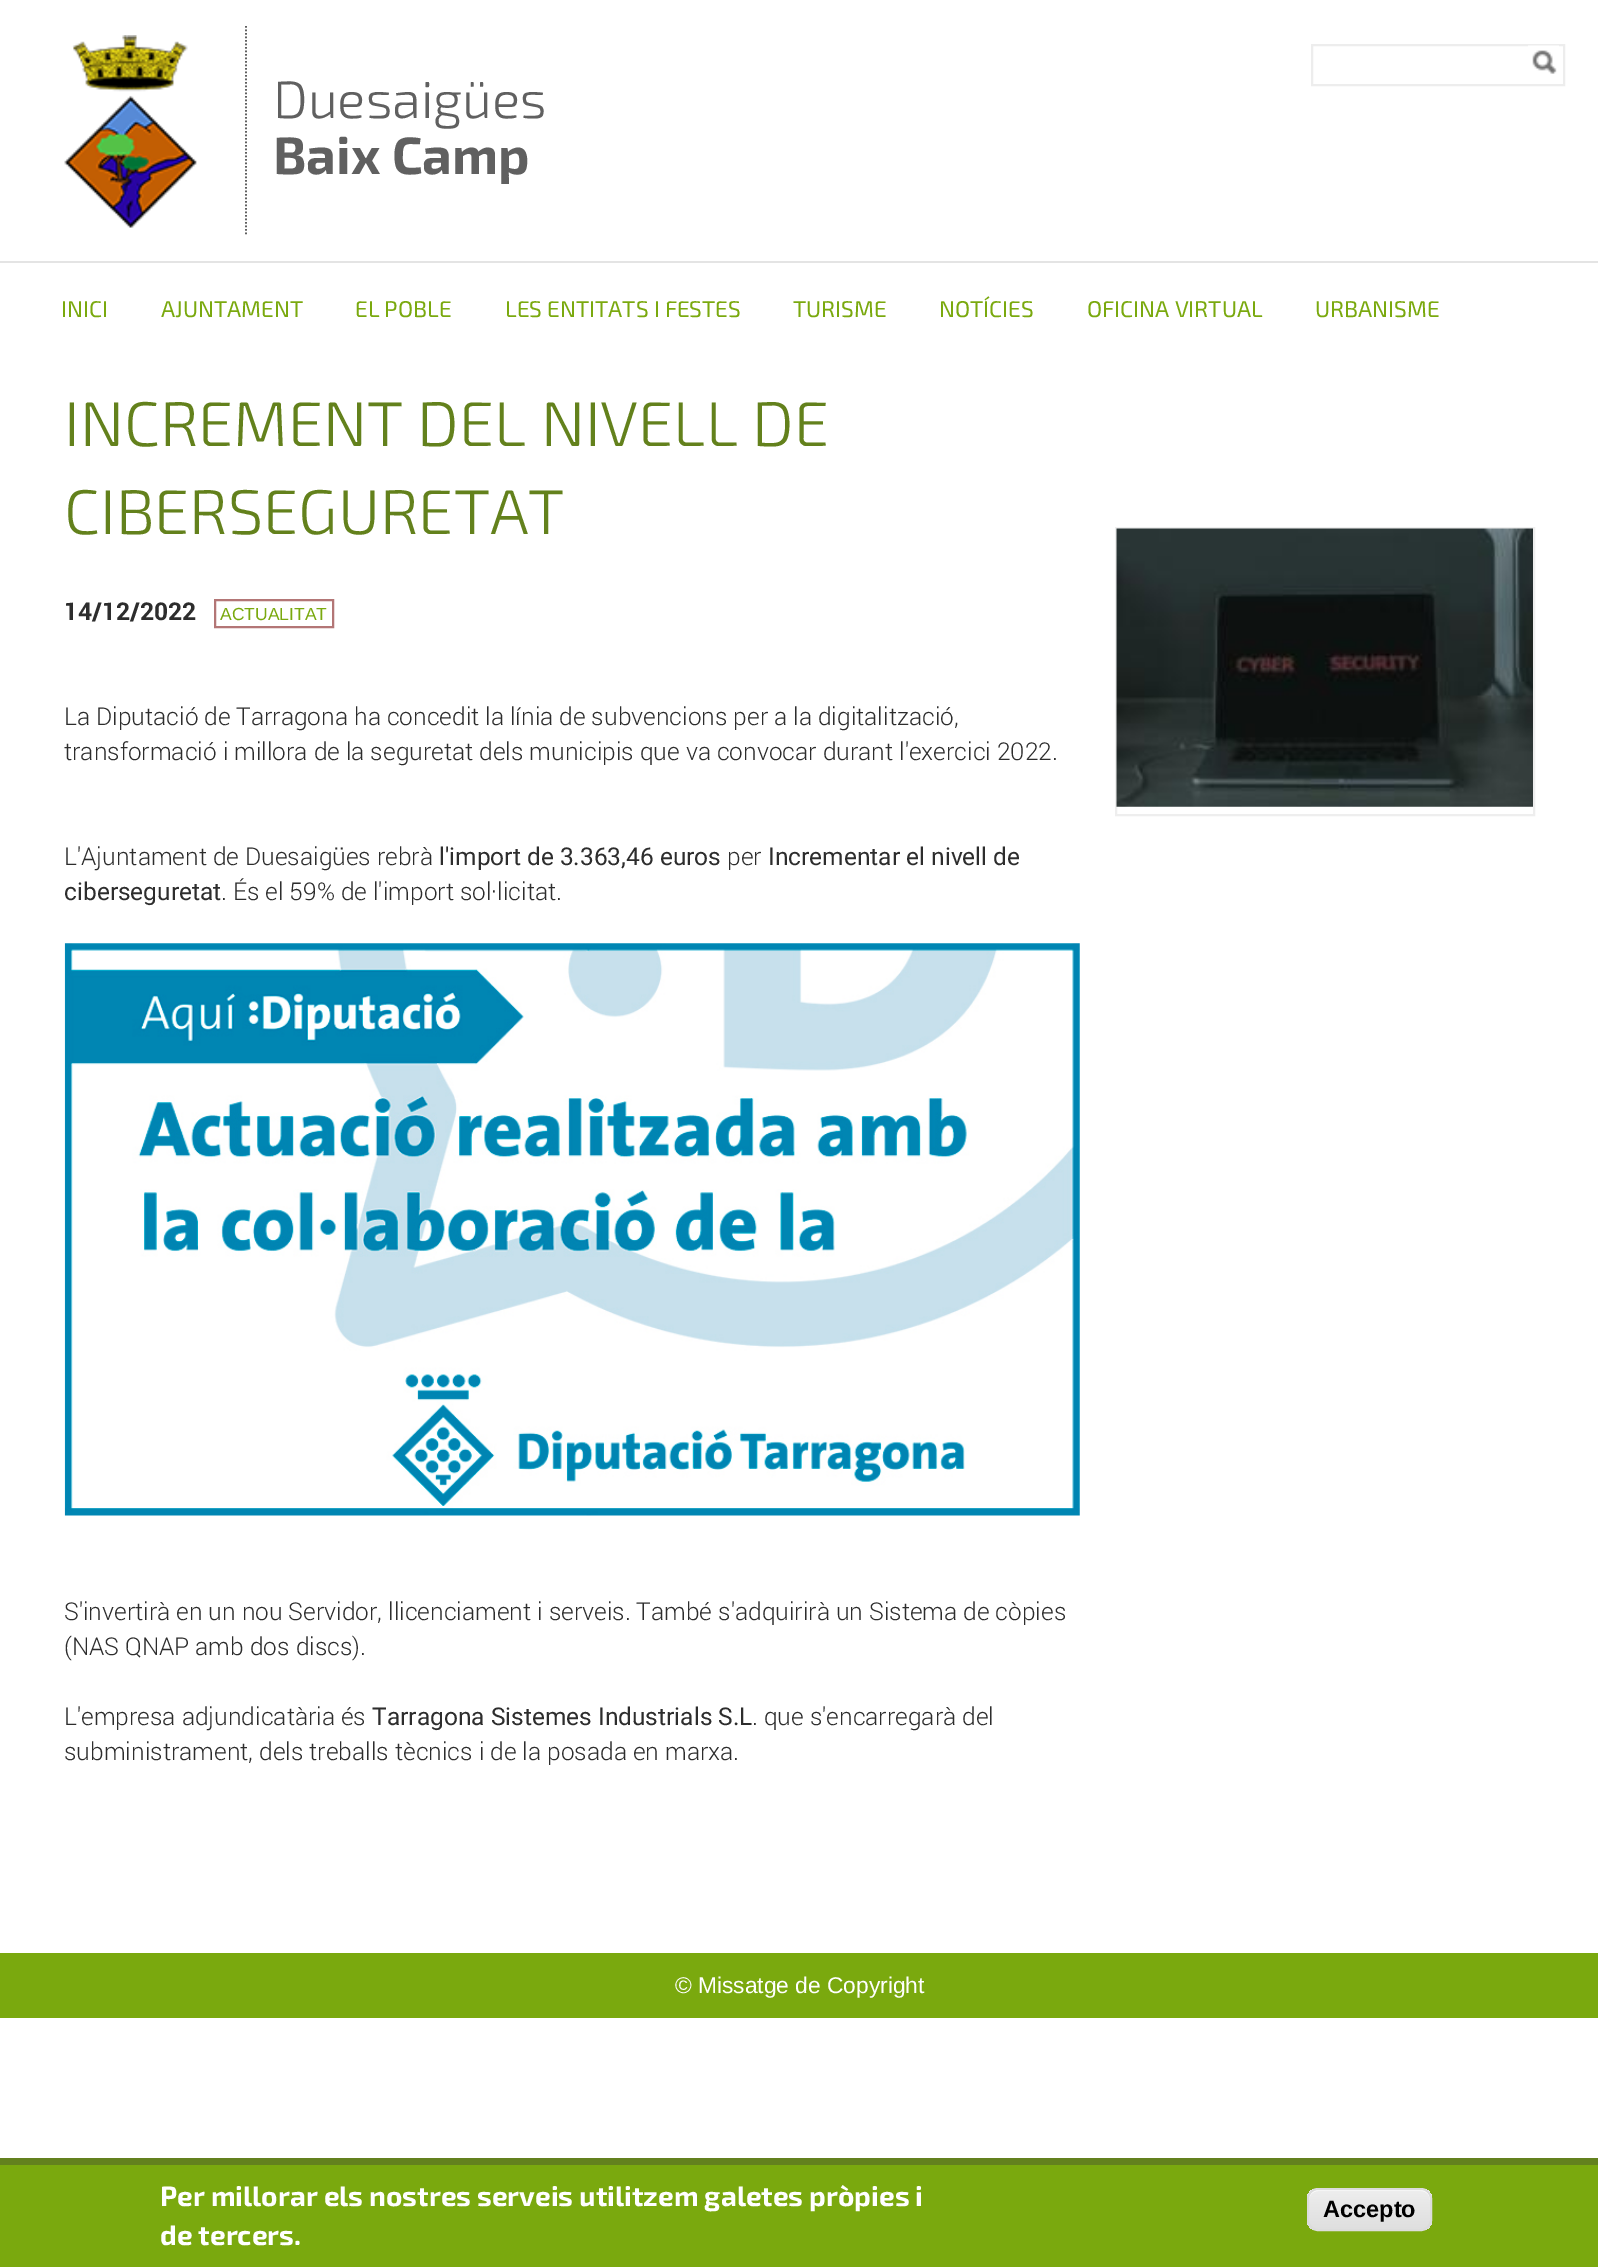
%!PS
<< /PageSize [1598 2267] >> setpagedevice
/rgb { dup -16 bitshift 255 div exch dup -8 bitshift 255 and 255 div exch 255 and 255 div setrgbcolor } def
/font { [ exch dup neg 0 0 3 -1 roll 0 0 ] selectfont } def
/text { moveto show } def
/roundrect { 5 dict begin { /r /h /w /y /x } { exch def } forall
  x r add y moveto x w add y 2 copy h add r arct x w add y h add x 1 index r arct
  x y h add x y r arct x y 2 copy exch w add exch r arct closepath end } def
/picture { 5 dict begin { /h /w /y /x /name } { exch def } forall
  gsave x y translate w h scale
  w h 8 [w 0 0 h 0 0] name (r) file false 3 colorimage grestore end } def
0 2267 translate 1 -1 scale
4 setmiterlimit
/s1 { /Exo2-Light 52.5 font 16#606060 rgb } def
/s2 { /Exo2-Bold 52.5 font 16#606060 rgb } def
/s3 { /Exo2-Regular 22.75 font 16#7AA90E rgb } def
/s4 { /Exo2-Light 63 font 16#63811C rgb } def
/s5 { /Roboto-Bold 24.5 font 16#2D2D2D rgb } def
/s6 { /LiberationSans-Regular 17.5 font 16#7AA90E rgb } def
/s7 { /Roboto-Light 24.5 font 16#2D2D2D rgb } def
/s8 { /Roboto-Regular 24.5 font 16#2D2D2D rgb } def
/s9 { /LiberationSans-Regular 22.75 font 16#FFFFFF rgb } def
/s10 { /Exo2-Bold 28 font 16#FFFFFF rgb } def
/s11 { /LiberationSans-Bold 23.5 font 16#000000 rgb } def
16#FFFFFF rgb
0 0 1598 2267 rectfill
16#EDEDED rgb
2 setlinewidth
1312 45 252 40 rectstroke
(pic1.raw) 1528 45 31 29 picture
(pic2.raw) 64 35 133 193 picture
16#606060 rgb
1.8 setlinewidth
[1.75 1.75] 0 setdash
246 26 moveto 246 234.5 lineto stroke
s1
(Duesaigües) 273 118 text
s2
(Baix Camp) 273 174 text
16#E4E4E4 rgb
0 261 1598 2 rectfill
s3
(INICI) 61 317 text
(AJUNTAMENT) 161 317 text
(EL POBLE) 355 317 text
(LES ENTITATS I FESTES) 505 317 text
(TURISME) 793 317 text
(NOTÍCIES) 939 317 text
(OFICINA VIRTUAL) 1087 317 text
(URBANISME) 1315 317 text
s4
(INCREMENT DEL NIVELL DE) 64 446 text
(CIBERSEGURETAT) 64 534 text
s5
(14/12/2022) 64 620 text
16#B37676 rgb
2 setlinewidth
[] 0 setdash
215 600 118 27 rectstroke
s6
(ACTUALITAT) 220 620 text
s7
(La Diputació de Tarragona ha concedit la línia de subvencions per a la digitalització,) 64 725 text
(transformació i millora de la seguretat dels municipis que va convocar durant l'exercici 2022.) 64 760 text
(L'Ajuntament de Duesaigües rebrà) 64 865 text
s8
(l'import de 3.363,46 euros) 439 865 text
s7
(per) 727 865 text
s8
(Incrementar el nivell de) 768 865 text
(ciberseguretat) 64 900 text
s7
(. És el 59% de l'import sol·licitat.) 221 900 text
(pic3.raw) 64 943 1016 573 picture
(S'invertirà en un nou Servidor, llicenciament i serveis. També s'adquirirà un Sistema de còpies) 64 1620 text
(\(NAS QNAP amb dos discs\).) 64 1655 text
(L'empresa adjundicatària és) 64 1725 text
s8
(Tarragona Sistemes Industrials S.L) 372 1725 text
s7
(. que s'encarregarà del) 752 1725 text
(subministrament, dels treballs tècnics i de la posada en marxa.) 64 1760 text
16#EEEEEE rgb
1116 528 418 287 rectstroke
(pic4.raw) 1116 528 417 279 picture
16#7AA90E rgb
0 1953 1598 65 rectfill
s9
(© Missatge de Copyright) 675 1993 text
16#7AA90E rgb
0 2165 1598 102 rectfill
16#63811E rgb
0 2158 1598 7 rectfill
s10
(Per millorar els nostres serveis utilitzem galetes pròpies i) 160 2206 text
(de tercers.) 160 2245 text
gsave
1307 2188 125 43 11 roundrect clip newpath
gsave 1307 2189 moveto 1432 2189 lineto 1432 2230 lineto 1307 2230 lineto closepath clip newpath
<< /ShadingType 2 /ColorSpace /DeviceRGB /Coords [1369 2189 1369 2230] /Extend [true true] /Function << /FunctionType 3 /Domain [0 1] /Functions [<< /FunctionType 2 /Domain [0 1] /C0 [0.929 0.929 0.929] /C1 [0.929 0.929 0.929] /N 1 >> << /FunctionType 2 /Domain [0 1] /C0 [0.929 0.929 0.929] /C1 [0.875 0.875 0.875] /N 1 >>] /Bounds [0.05] /Encode [0 1 0 1] >> >> shfill grestore
grestore
1318 2191 moveto 1421 2191 lineto 1426 2191 1430 2195 1430 2200 curveto 1430 2185 1415 2189 1404 2189 curveto 1335 2189 lineto 1324 2189 1309 2185 1309 2200 curveto 1309 2195 1313 2191 1318 2191 curveto closepath fill
16#DCDCDC rgb
1308 2189 123 41 10 roundrect stroke
s11
(Accepto) 1323 2217 text
showpage
